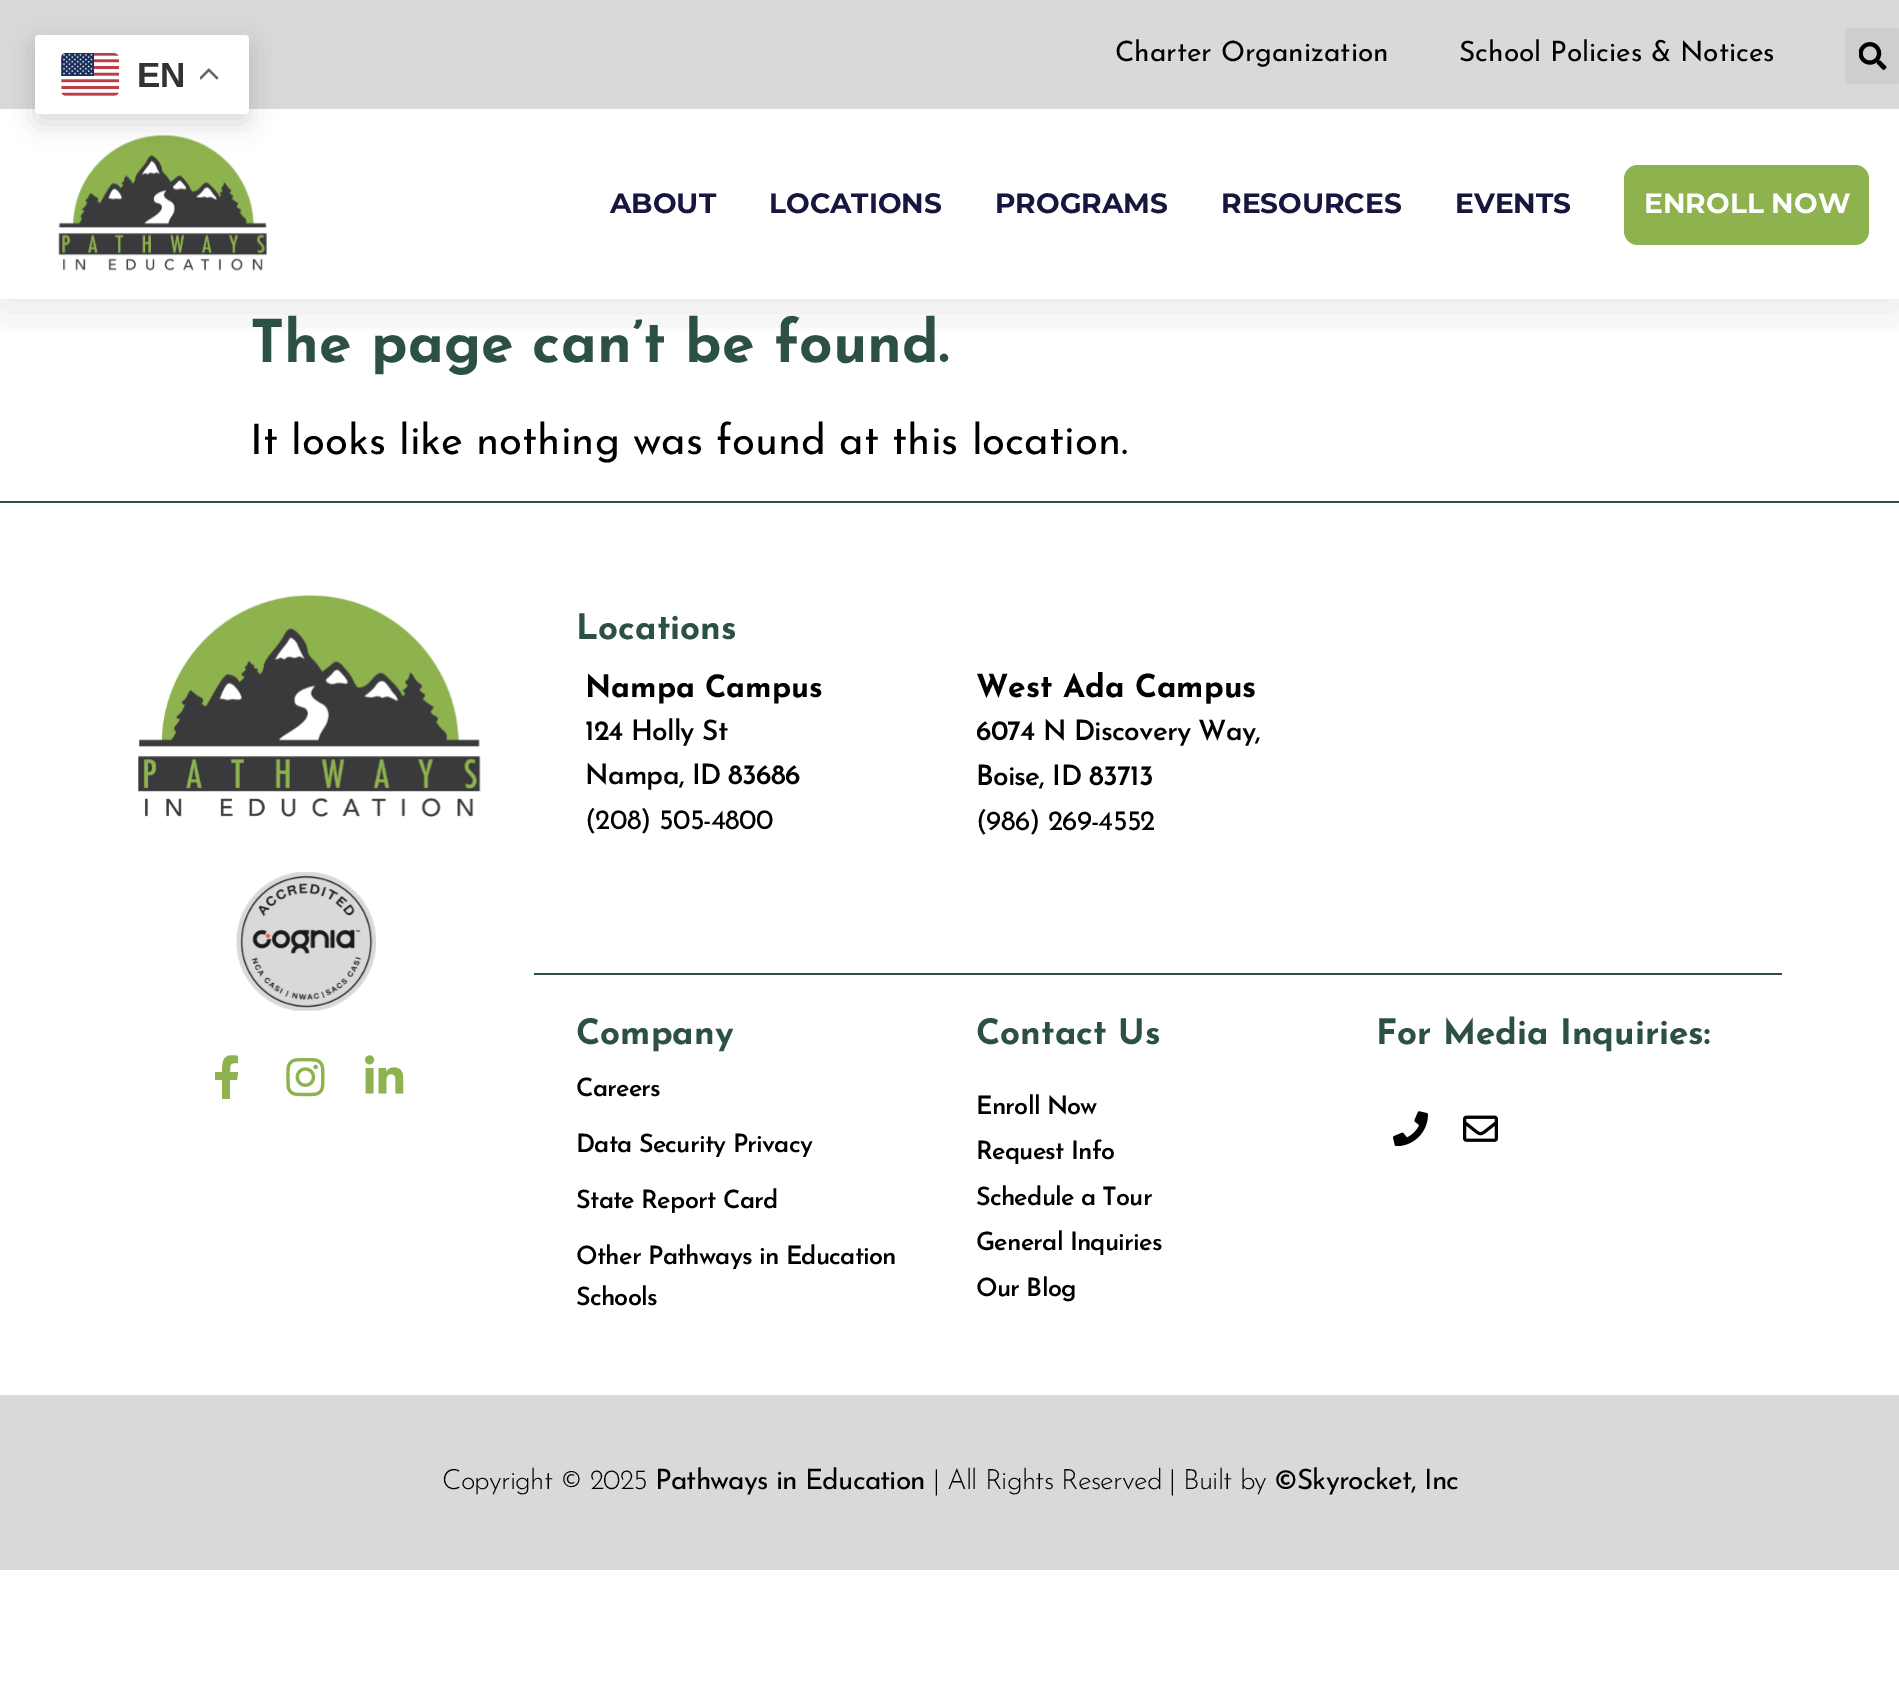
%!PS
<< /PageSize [1899 1703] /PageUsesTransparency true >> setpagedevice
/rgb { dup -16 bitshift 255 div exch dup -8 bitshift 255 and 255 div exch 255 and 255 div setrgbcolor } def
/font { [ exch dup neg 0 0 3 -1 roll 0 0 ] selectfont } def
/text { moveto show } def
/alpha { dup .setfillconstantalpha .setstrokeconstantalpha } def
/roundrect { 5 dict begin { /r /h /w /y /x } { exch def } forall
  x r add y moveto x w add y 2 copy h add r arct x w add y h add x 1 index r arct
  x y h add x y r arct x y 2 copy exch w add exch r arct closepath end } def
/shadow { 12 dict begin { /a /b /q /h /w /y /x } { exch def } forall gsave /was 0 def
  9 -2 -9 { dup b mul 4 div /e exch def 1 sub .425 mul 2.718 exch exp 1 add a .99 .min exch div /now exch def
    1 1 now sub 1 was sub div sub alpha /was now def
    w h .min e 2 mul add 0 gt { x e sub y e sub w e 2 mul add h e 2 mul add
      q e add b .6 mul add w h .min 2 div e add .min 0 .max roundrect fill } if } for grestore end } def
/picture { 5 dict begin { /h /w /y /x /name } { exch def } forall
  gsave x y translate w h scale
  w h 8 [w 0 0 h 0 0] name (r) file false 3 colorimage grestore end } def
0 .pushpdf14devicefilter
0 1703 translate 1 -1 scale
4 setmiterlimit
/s1 { /LiberationSans-Bold 35 font 16#333333 rgb } def
/s2 { /JosefinSans-Regular 28 font 16#000000 rgb } def
/s3 { /Montserrat-Bold 28 font 16#16163F rgb } def
/s4 { /Montserrat-Bold 28 font 16#FFFFFF rgb } def
/s5 { /JosefinSans-Bold 58.75 font 16#2D5044 rgb } def
/s6 { /JosefinSans-Regular 42 font 16#000000 rgb } def
/s7 { /JosefinSans-Bold 35 font 16#2D5044 rgb } def
/s8 { /JosefinSans-Bold 30.75 font 16#000000 rgb } def
/s9 { /JosefinSans-Bold 31.75 font 16#000000 rgb } def
16#FFFFFF rgb
0 0 1899 1703 rectfill
gsave
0 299 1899 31 rectclip
16#000000 rgb
0 9 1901 299 0 26 0.1 shadow
grestore
16#D9D9D9 rgb
0 0 1899 109 rectfill
(pic4.raw) 58 134 209 137 picture
16#000000 rgb
35 44 214 79 4 13 0.15 shadow
16#FFFFFF rgb
35 35 214 79 4 roundrect fill
(pic1.raw) 61 53 58 43 picture
s1
(EN) 137 87 text
(pic2.raw) 200 68 19 12 picture
s2
(Charter Organization) 1115 61 text
(School Policies & Notices) 1459 61 text
16#CECECE rgb
1845 28 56 56 5 roundrect fill
(pic3.raw) 1859 42 28 28 picture
s3
(ABOUT) 610 213 text
(LOCATIONS) 769 213 text
(PROGRAMS) 995 213 text
(RESOURCES) 1221 213 text
(EVENTS) 1455 213 text
16#8DB24E rgb
1624 165 245 80 14 roundrect fill
s4
(ENROLL NOW) 1644 213 text
s5
(The page can’t be found.) 250 362 text
s6
(It looks like nothing was found at this location.) 250 454 text
16#2D5044 rgb
0 501 1899 2 rectfill
(pic5.raw) 138 594 343 223 picture
(pic6.raw) 236 872 140 139 picture
16#8DB24E rgb
237 1080 moveto 238 1072 lineto 230 1072 lineto 230 1064 230 1063 238 1063 curveto 238 1056 lineto 224 1053 222 1059 222 1072 curveto 215 1072 lineto 215 1080 lineto 222 1080 lineto 222 1099 lineto 230 1099 lineto 230 1080 lineto closepath fill
(pic7.raw) 286 1058 39 39 picture
(pic8.raw) 365 1055 39 39 picture
s7
(Locations) 576 639 text
s8
(Nampa Campus) 585 697 text
/JosefinSans-SemiBold 28 font
585 740 moveto -0.8 0 (124 Holly St) ashow
585 784 moveto -0.8 0 (Nampa, ID 83686) ashow
/JosefinSans-Regular 28 font
585 829 moveto -0.8 0 (\(208\) 505-4800) ashow
s9
(West Ada Campus) 976 697 text
/JosefinSans-SemiBold 28 font
976 740 moveto -0.8 0 (6074 N Discovery Way,) ashow
976 785 moveto -0.8 0 (Boise, ID 83713) ashow
/JosefinSans-Regular 28 font
976 830 moveto -0.8 0 (\(986\) 269-4552) ashow
16#2D5044 rgb
534 973 1248 2 rectfill
s7
(Company) 576 1044 text
/JosefinSans-SemiBold 25.25 font
16#000000 rgb
576 1096 moveto -0.8 0 (Careers) ashow
576 1152 moveto -0.8 0 (Data Security Privacy) ashow
576 1208 moveto -0.8 0 (State Report Card) ashow
576 1264 moveto -0.8 0 (Other Pathways in Education) ashow
576 1305 moveto -0.8 0 (Schools) ashow
s7
(Contact Us) 976 1044 text
/JosefinSans-SemiBold 25.25 font
16#000000 rgb
976 1114 moveto -0.8 0 (Enroll Now) ashow
976 1159 moveto -0.8 0 (Request Info) ashow
976 1205 moveto -0.8 0 (Schedule a Tour) ashow
976 1250 moveto -0.8 0 (General Inquiries) ashow
976 1296 moveto -0.8 0 (Our Blog) ashow
s7
(For Media Inquiries:) 1376 1044 text
(pic9.raw) 1393 1111 35 35 picture
(pic10.raw) 1463 1115 35 27 picture
16#D9D9D9 rgb
0 1395 1899 175 rectfill
/JosefinSans-Light 28 font
16#000000 rgb
442 1489 moveto -0.8 0 (Copyright © 2025) ashow
/JosefinSans-Regular 28 font
655 1489 moveto -0.8 0 (Pathways in Education) ashow
/JosefinSans-Light 28 font
933 1489 moveto -0.8 0 (| All Rights Reserved | Built by) ashow
/JosefinSans-Regular 28 font
1274 1489 moveto -0.8 0 (©Skyrocket, Inc) ashow
.poppdf14devicefilter showpage
